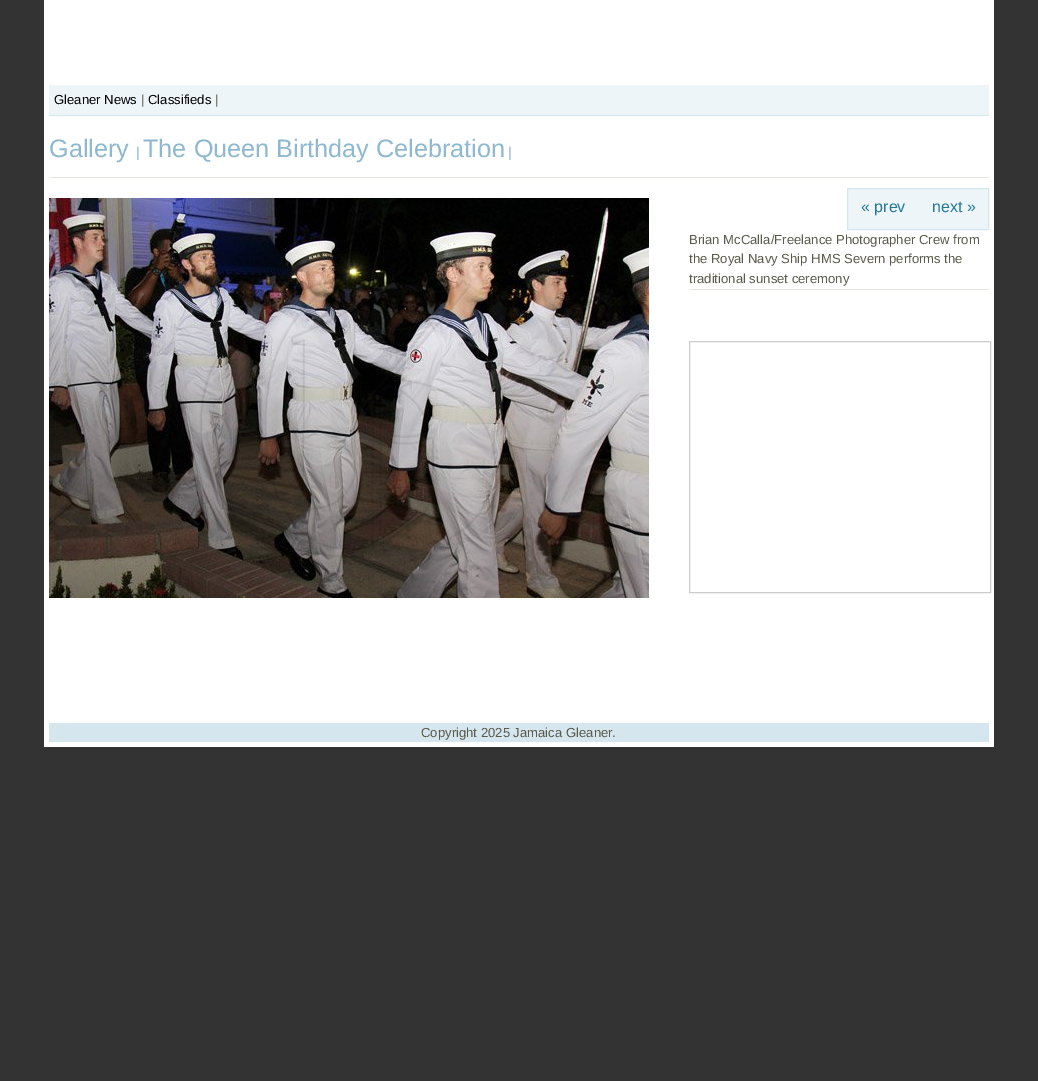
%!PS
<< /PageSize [1038 1081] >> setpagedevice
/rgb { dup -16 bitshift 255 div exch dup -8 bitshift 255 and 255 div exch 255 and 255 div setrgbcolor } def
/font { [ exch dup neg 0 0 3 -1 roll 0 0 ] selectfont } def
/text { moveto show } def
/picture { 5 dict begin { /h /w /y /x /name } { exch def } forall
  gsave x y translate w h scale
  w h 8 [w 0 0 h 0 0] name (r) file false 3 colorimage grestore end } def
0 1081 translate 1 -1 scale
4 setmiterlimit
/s1 { /LiberationSans-Regular 13.1 font 16#000000 rgb } def
/s2 { /LiberationSans-Regular 13.1 font 16#5A5A4B rgb } def
/s3 { /LiberationSans-Regular 25.25 font 16#8DB8CF rgb } def
/s4 { /LiberationSans-Regular 14 font 16#8DB8CF rgb } def
/s5 { /LiberationSans-Regular 16 font 16#237898 rgb } def
16#333333 rgb
0 0 1038 1081 rectfill
16#FFFFFF rgb
44 0 950 747 rectfill
16#EEF5F9 rgb
49 85 940 30 rectfill
16#D5E6EE rgb
49 115 940 1 rectfill
s1
(Gleaner News) 54 104 text
s2
(|) 141 104 text
s1
(Classifieds) 148 104 text
s2
(|) 215 104 text
16#E6E6DF rgb
49 177 940 1 rectfill
s3
(Gallery) 49 157 text
s4
(|) 136 157 text
s3
(The Queen Birthday Celebration) 143 157 text
s4
(|) 508 157 text
(pic1.raw) 49 198 600 400 picture
16#EEF5F9 rgb
847.5 188.5 moveto 988.5 188.5 lineto 988.5 229.5 lineto 847.5 229.5 lineto closepath gsave fill grestore
16#D5E6EE rgb
stroke
s5
(« prev) 861 212 text
(next ») 932 212 text
s2
(Brian McCalla/Freelance Photographer Crew from) 689 244 text
(the Royal Navy Ship HMS Severn performs the) 689 263 text
(traditional sunset ceremony) 689 283 text
16#E6E6DF rgb
689 289 300 1 rectfill
16#CCCCCC rgb
689.5 341.5 301 251 rectstroke
16#D5E6EE rgb
49 723 940 19 rectfill
s2
(Copyright 2025 Jamaica Gleaner.) 421 737 text
showpage
